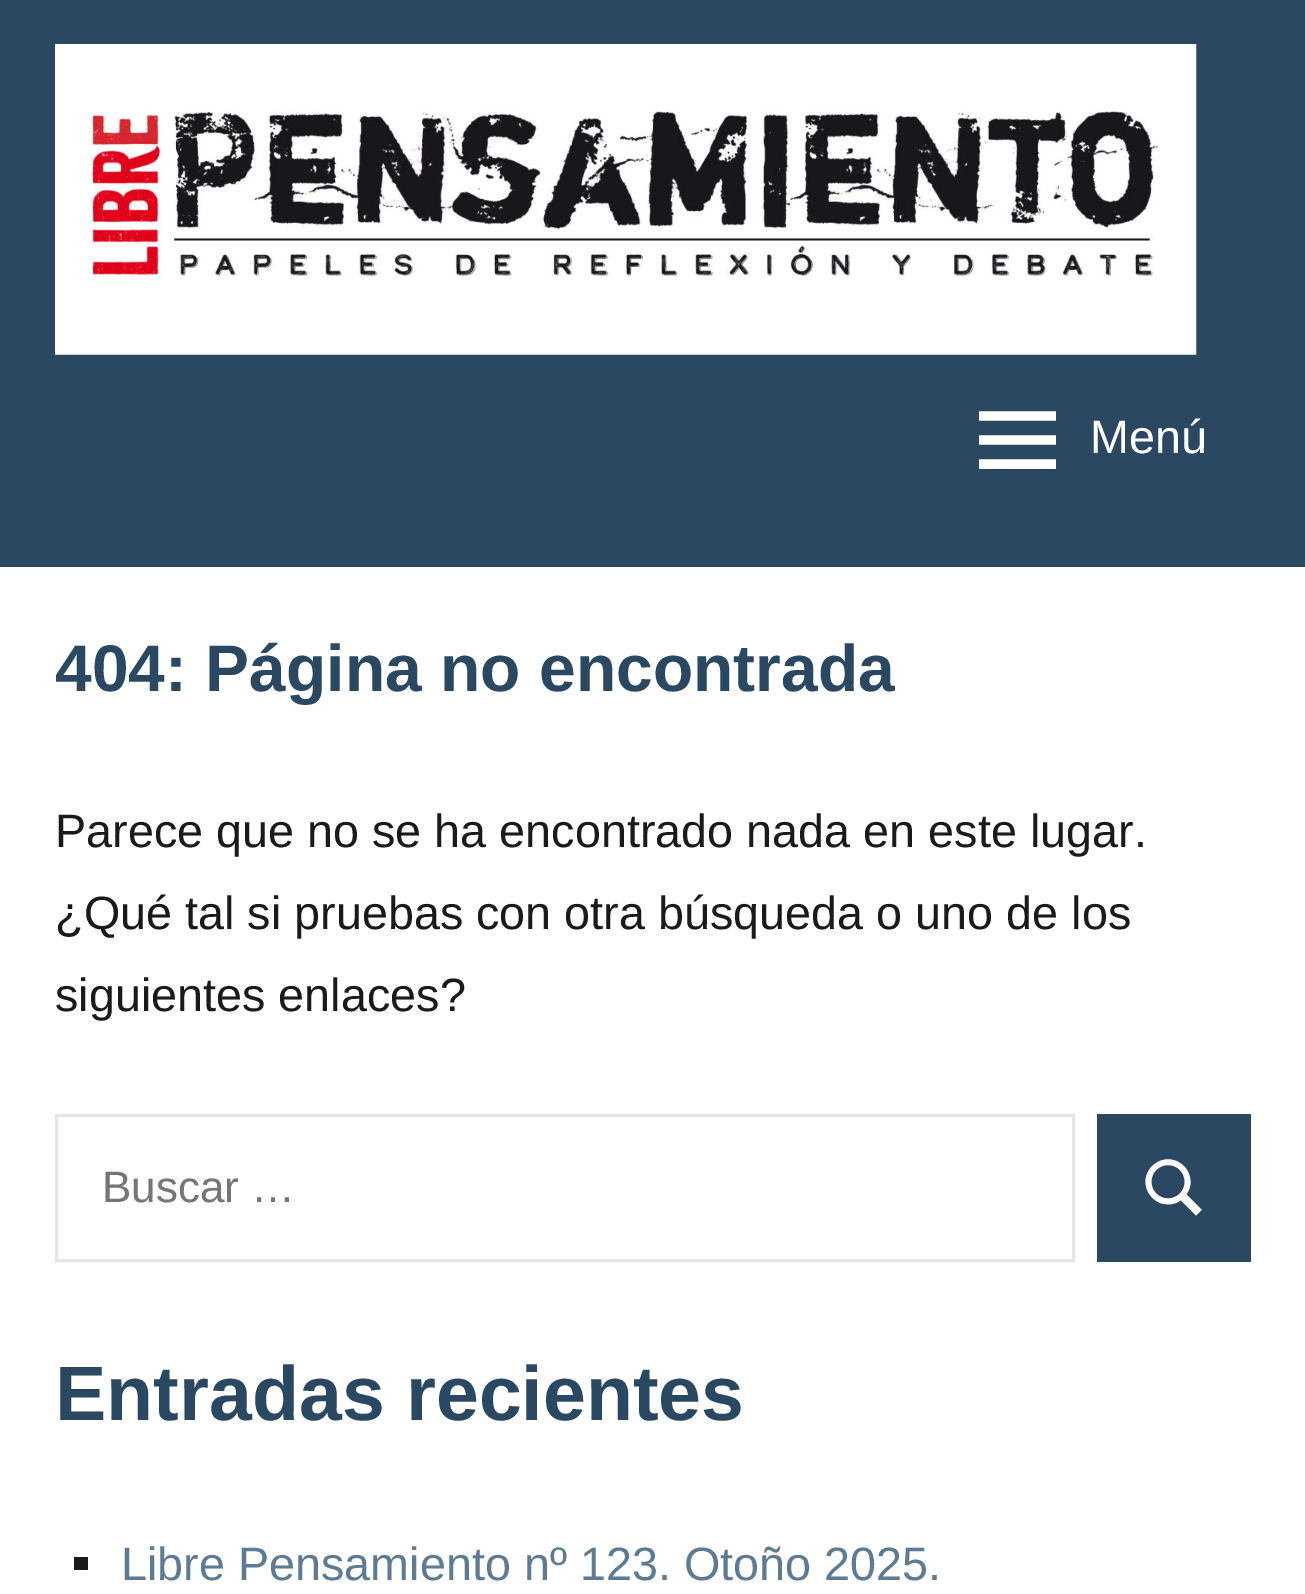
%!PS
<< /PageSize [1305 1594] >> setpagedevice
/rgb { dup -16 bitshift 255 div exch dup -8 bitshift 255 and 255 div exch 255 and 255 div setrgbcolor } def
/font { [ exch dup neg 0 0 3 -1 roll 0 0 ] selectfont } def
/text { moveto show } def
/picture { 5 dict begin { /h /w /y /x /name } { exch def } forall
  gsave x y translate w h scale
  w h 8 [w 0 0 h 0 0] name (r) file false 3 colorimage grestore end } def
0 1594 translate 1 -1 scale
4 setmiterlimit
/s1 { /LiberationSans-Regular 46.75 font 16#FFFFFF rgb } def
/s2 { /LiberationSans-Bold 66 font 16#2A4861 rgb } def
/s3 { /LiberationSans-Regular 46.75 font 16#1A1A1A rgb } def
/s4 { /LiberationSans-Regular 44 font 16#757575 rgb } def
/s5 { /LiberationSans-Bold 77 font 16#2A4861 rgb } def
/s6 { /LiberationSans-Regular 46.75 font 16#5D7B94 rgb } def
16#2A4861 rgb
0 0 1305 1594 rectfill
(pic1.raw) 55 44 1142 311 picture
(pic2.raw) 979 411 77 58 picture
s1
(Menú) 1090 453 text
0 567 1305 1027 rectfill
s2
(404: Página no encontrada) 55 691 text
s3
(Parece que no se ha encontrado nada en este lugar.) 55 847 text
(¿Qué tal si pruebas con otra búsqueda o uno de los) 55 929 text
(siguientes enlaces?) 55 1011 text
16#E6E6E6 rgb
3 setlinewidth
56.5 1115.5 1017 145 rectstroke
s4
(Buscar …) 102 1202 text
16#2A4861 rgb
1097 1114 154 148 rectfill
(pic3.raw) 1145 1159 57 57 picture
s5
(Entradas recientes) 55 1420 text
16#1A1A1A rgb
74 1557 14 13 rectfill
s6
(Libre Pensamiento nº 123. Otoño 2025.) 121 1580 text
showpage
